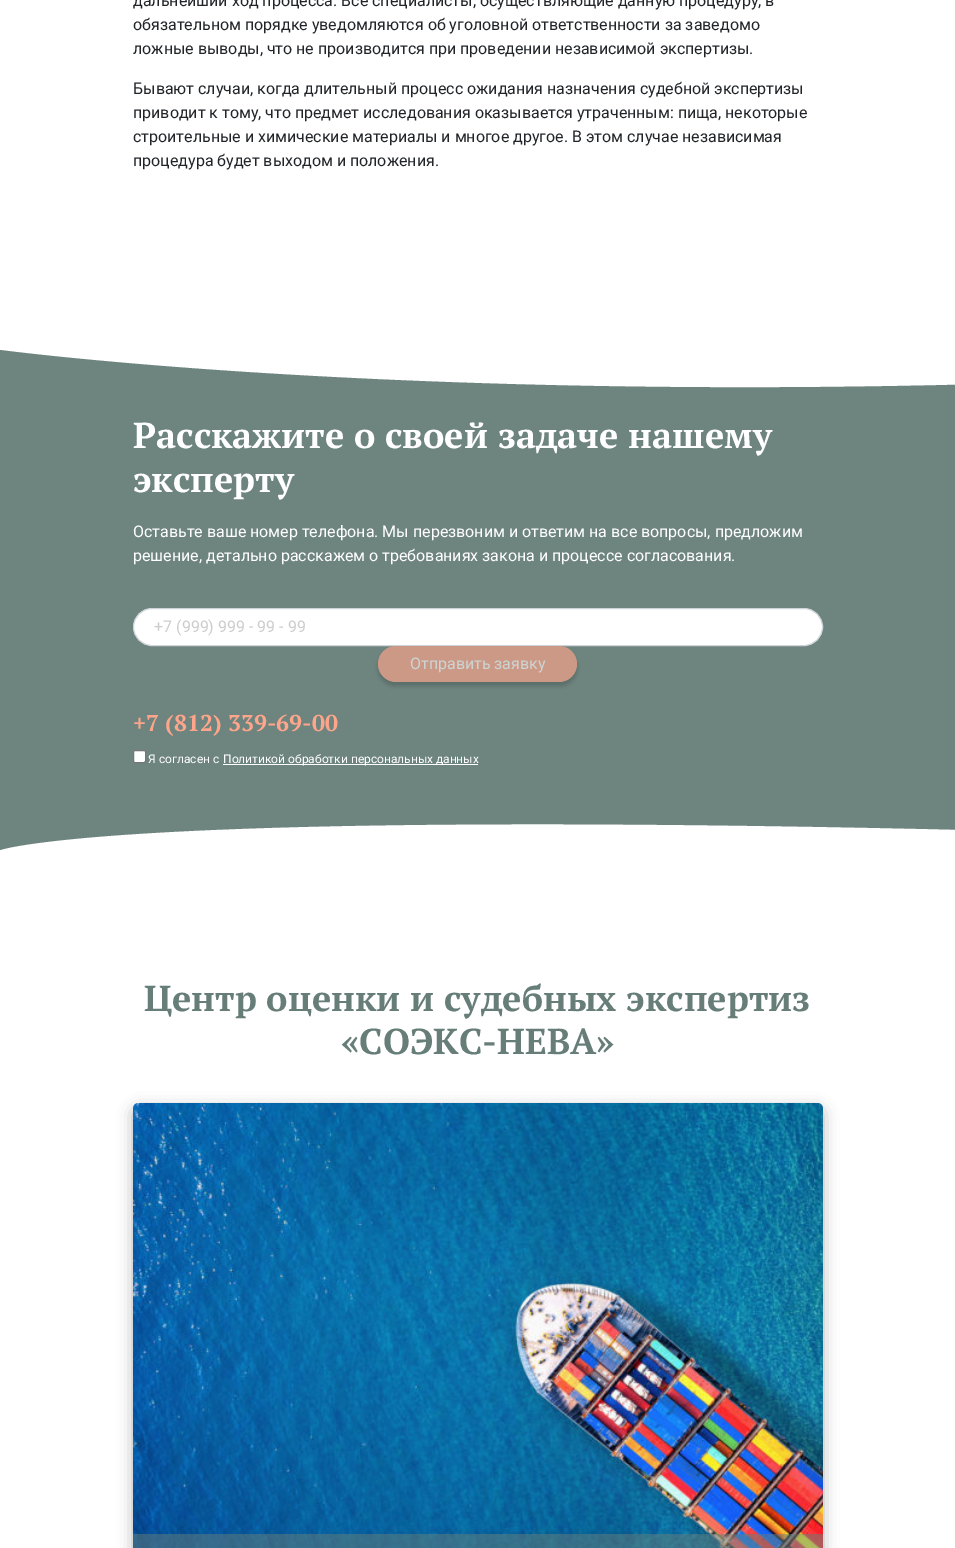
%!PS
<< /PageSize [955 1548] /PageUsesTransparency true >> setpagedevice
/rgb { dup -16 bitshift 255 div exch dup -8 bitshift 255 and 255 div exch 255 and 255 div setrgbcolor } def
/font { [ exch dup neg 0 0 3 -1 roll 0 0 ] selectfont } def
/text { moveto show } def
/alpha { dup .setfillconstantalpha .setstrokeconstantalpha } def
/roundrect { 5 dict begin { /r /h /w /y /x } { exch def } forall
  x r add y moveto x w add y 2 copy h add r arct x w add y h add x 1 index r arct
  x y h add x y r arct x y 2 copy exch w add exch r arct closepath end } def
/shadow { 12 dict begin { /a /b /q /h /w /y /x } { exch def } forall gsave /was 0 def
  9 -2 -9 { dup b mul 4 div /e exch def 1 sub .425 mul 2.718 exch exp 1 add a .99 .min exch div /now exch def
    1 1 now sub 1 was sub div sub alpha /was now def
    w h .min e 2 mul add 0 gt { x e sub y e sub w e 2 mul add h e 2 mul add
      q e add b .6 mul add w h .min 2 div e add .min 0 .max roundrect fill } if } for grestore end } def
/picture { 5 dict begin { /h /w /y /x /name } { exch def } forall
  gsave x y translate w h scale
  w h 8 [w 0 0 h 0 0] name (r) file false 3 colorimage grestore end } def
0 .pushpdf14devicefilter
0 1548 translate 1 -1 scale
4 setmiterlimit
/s1 { /Roboto-Regular 16 font 16#212529 rgb } def
/s2 { /PTSerif-Bold 36 font 16#FFFFFF rgb } def
/s3 { /Roboto-Regular 16 font 16#FFFFFF rgb } def
/s4 { /Roboto-Regular 16 font 16#CCCCCC rgb } def
/s5 { /Roboto-Regular 16 font 16#CCD4D2 rgb } def
/s6 { /PTSerif-Bold 23 font 16#FEA58B rgb } def
/s7 { /Roboto-Regular 12 font 16#FFFFFF rgb } def
/s8 { /PTSerif-Bold 36 font 16#667D78 rgb } def
16#FFFFFF rgb
0 0 955 1548 rectfill
s1
(дальнейший ход процесса. Все специалисты, осуществляющие данную процедуру, в) 133 6 text
(обязательном порядке уведомляются об уголовной ответственности за заведомо) 133 30 text
(ложные выводы, что не производится при проведении независимой экспертизы.) 133 54 text
(Бывают случаи, когда длительный процесс ожидания назначения судебной экспертизы) 133 94 text
(приводит к тому, что предмет исследования оказывается утраченным: пища, некоторые) 133 118 text
(строительные и химические материалы и многое другое. В этом случае независимая) 133 142 text
(процедура будет выходом и положения.) 133 166 text
16#6E847F rgb
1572 350 moveto 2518 267 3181 350 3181 350 curveto 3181 850 lineto 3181 850 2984 908 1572 850 curveto 160 792 0 850 0 850 curveto 0 350 lineto 0 350 627 434 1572 350 curveto closepath fill
s2
(Расскажите о своей задаче нашему) 133 448 text
(эксперту) 133 492 text
s3
(Оставьте ваше номер телефона. Мы перезвоним и ответим на все вопросы, предложим) 133 537 text
(решение, детально расскажем о требованиях закона и процессе согласования.) 133 561 text
133.5 608.5 689 37 18.5 roundrect gsave fill grestore
16#CED4DA rgb
stroke
s4
(+7 \(999\) 999 - 99 - 99) 154 632 text
16#272E2C rgb
378 650 199 36 18 2 0.25 shadow
16#CC9987 rgb
378 646 199 36 18 roundrect fill
s5
(Отправить заявку) 410 669 text
s6
(+7 \(812\) 339-69-00) 133 731 text
16#FFFFFF rgb
133.5 750.5 12 12 1.5 roundrect gsave fill grestore
16#767676 rgb
stroke
s7
(Я согласен с) 148 763 text
223 764 255 1 rectfill
(Политикой обработки персональных данных) 223 763 text
s8
(Центр оценки и судебных экспертиз) 144 1011 text
(«СОЭКС-НЕВА») 341 1054 text
16#000000 rgb
133 1108 690 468 5 7.5 0.3 shadow
(pic1.raw) 133 1103 690 445 picture
0.5 alpha
16#667D78 rgb
133 1534 690 14 rectfill
.poppdf14devicefilter showpage
